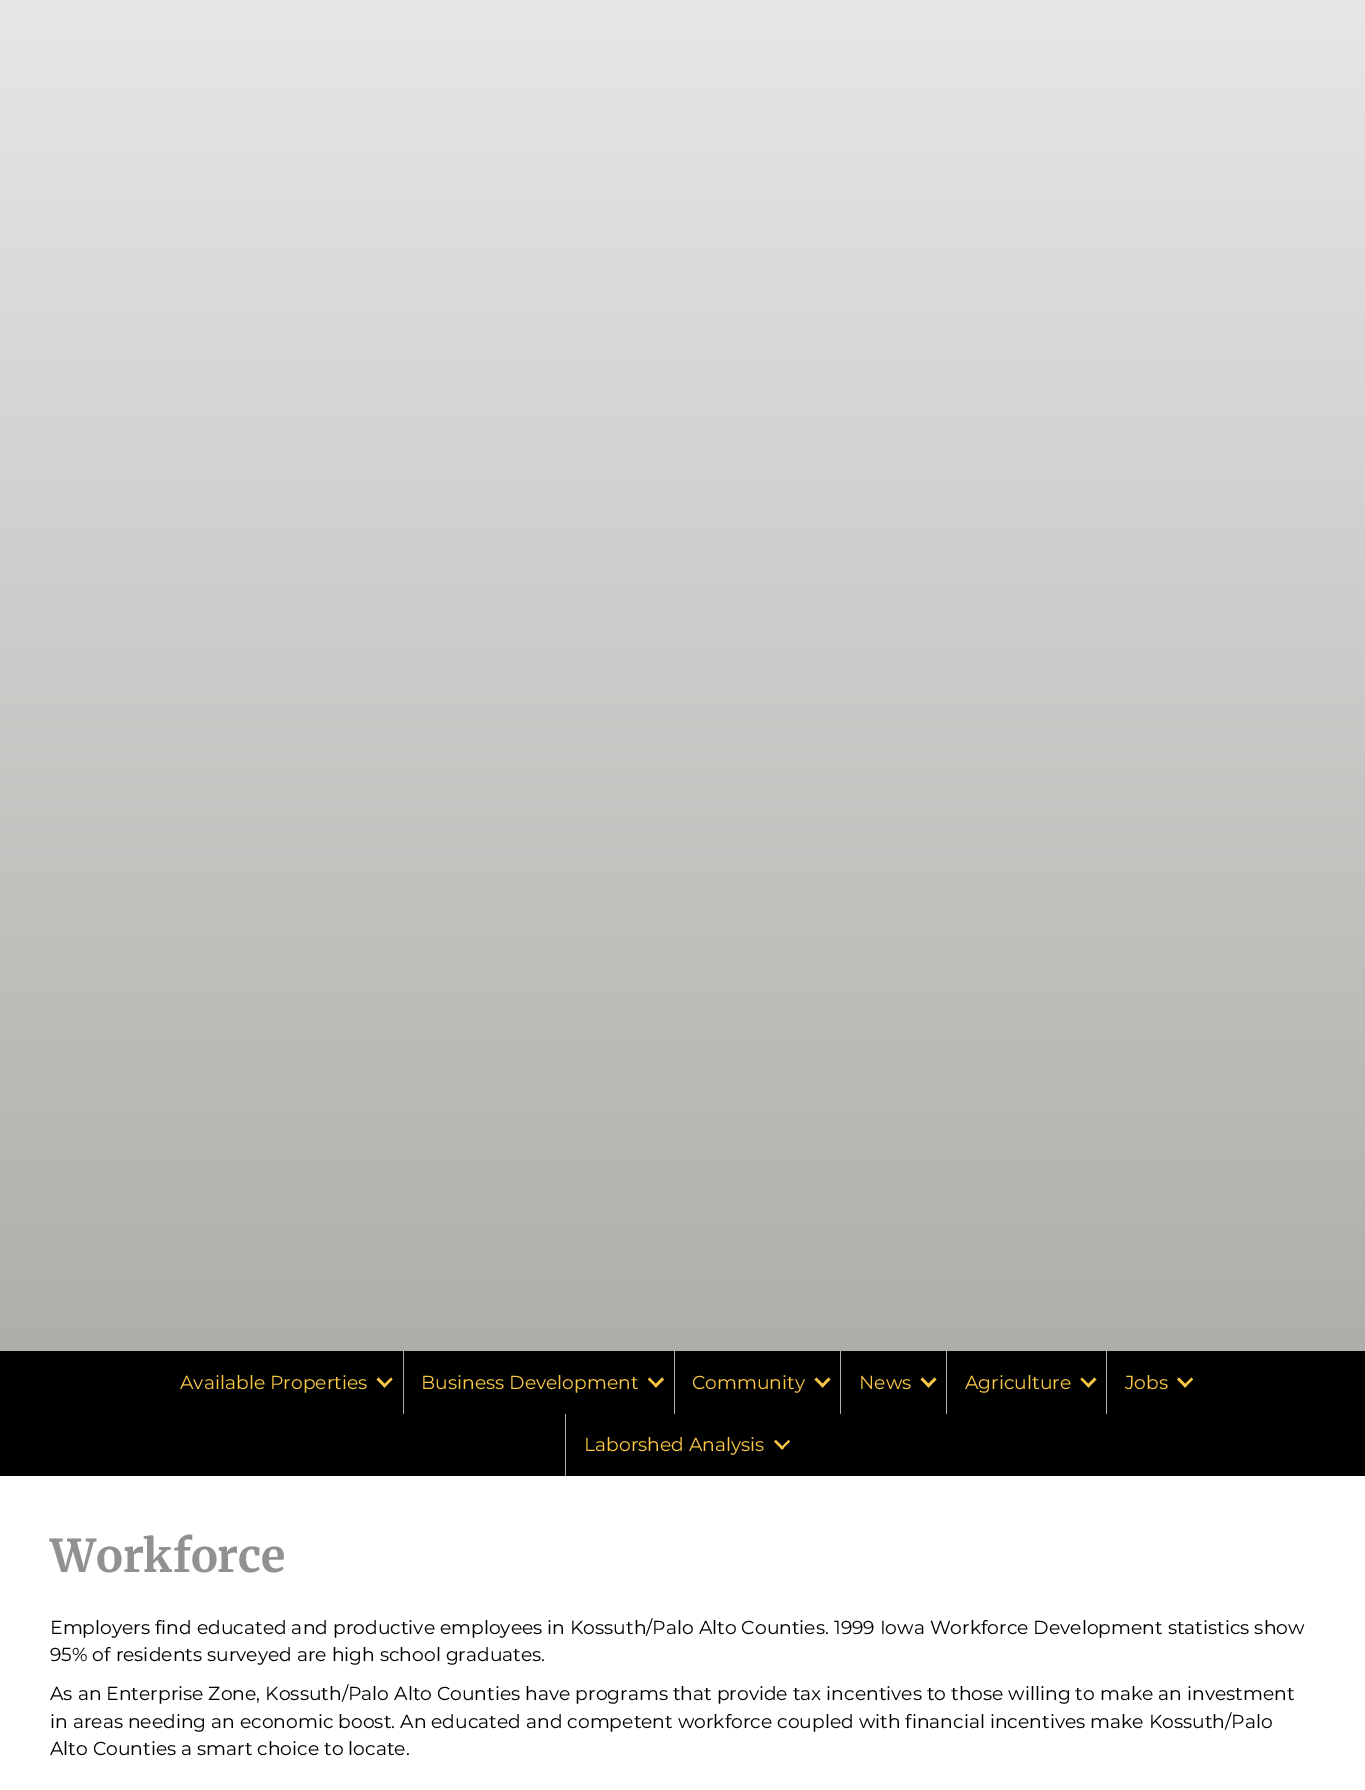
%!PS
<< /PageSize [1365 1790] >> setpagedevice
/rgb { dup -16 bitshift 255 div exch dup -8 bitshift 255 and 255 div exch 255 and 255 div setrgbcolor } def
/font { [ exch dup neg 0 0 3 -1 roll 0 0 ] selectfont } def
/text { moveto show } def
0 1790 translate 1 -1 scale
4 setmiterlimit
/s1 { /Montserrat-Regular 18.75 font 16#FBC846 rgb } def
/s2 { /Merriweather-Light 45 font 16#919191 rgb } def
/s3 { /Montserrat-Regular 18.75 font 16#000000 rgb } def
16#FFFFFF rgb
0 0 1365 1790 rectfill
gsave 0 0 moveto 1365 0 lineto 1365 1351 lineto 0 1351 lineto closepath clip newpath
<< /ShadingType 2 /ColorSpace /DeviceRGB /Coords [683 1351 683 -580] /Extend [true true] /Function << /FunctionType 2 /Domain [0 1] /C0 [0.686 0.682 0.667] /C1 [1 1 1] /N 1 >> >> shfill grestore
16#000000 rgb
0 1351 1365 125 rectfill
s1
(Available Properties) 180 1389 text
391 1377.5 moveto 392.5 1379.5 lineto 384.5 1387.5 lineto 383 1385.5 lineto closepath fill
378.5 1377.5 moveto 386.5 1385.5 lineto 384.5 1387.5 lineto 376.5 1379.5 lineto closepath fill
16#AFAEAA rgb
403 1351 1 63 rectfill
s1
(Business Development) 421 1389 text
662 1377.5 moveto 664 1379.5 lineto 656 1387.5 lineto 654 1385.5 lineto closepath fill
649.5 1377.5 moveto 657.5 1385.5 lineto 656 1387.5 lineto 648 1379.5 lineto closepath fill
16#AFAEAA rgb
674 1351 1 63 rectfill
s1
(Community) 692 1389 text
828.5 1377.5 moveto 830.5 1379.5 lineto 822.5 1387.5 lineto 821 1385.5 lineto closepath fill
816.5 1377.5 moveto 824.5 1385.5 lineto 822.5 1387.5 lineto 814.5 1379.5 lineto closepath fill
16#AFAEAA rgb
840 1351 1 63 rectfill
s1
(News) 859 1389 text
934.5 1377.5 moveto 936.5 1379.5 lineto 928.5 1387.5 lineto 926.5 1385.5 lineto closepath fill
922.5 1377.5 moveto 930.5 1385.5 lineto 928.5 1387.5 lineto 920.5 1379.5 lineto closepath fill
16#AFAEAA rgb
946 1351 1 63 rectfill
s1
(Agriculture) 965 1389 text
1094.5 1377.5 moveto 1096.5 1379.5 lineto 1088.5 1387.5 lineto 1086.5 1385.5 lineto closepath fill
1082 1377.5 moveto 1090 1385.5 lineto 1088.5 1387.5 lineto 1080.5 1379.5 lineto closepath fill
16#AFAEAA rgb
1106 1351 1 63 rectfill
s1
(Jobs) 1125 1389 text
1191.5 1377.5 moveto 1193 1379.5 lineto 1185 1387.5 lineto 1183.5 1385.5 lineto closepath fill
1179 1377.5 moveto 1187 1385.5 lineto 1185 1387.5 lineto 1177 1379.5 lineto closepath fill
16#AFAEAA rgb
565 1414 1 62 rectfill
s1
(Laborshed Analysis) 584 1451 text
788.5 1440 moveto 790 1441.5 lineto 782 1449.5 lineto 780.5 1448 lineto closepath fill
776 1440 moveto 784 1448 lineto 782 1449.5 lineto 774 1441.5 lineto closepath fill
s2
(Workforce) 50 1572 text
s3
(Employers find educated and productive employees in Kossuth/Palo Alto Counties. 1999 Iowa Workforce Development statistics show) 50 1634 text
(95% of residents surveyed are high school graduates.) 50 1661 text
(As an Enterprise Zone, Kossuth/Palo Alto Counties have programs that provide tax incentives to those willing to make an investment) 50 1700 text
(in areas needing an economic boost. An educated and competent workforce coupled with financial incentives make Kossuth/Palo) 50 1728 text
(Alto Counties a smart choice to locate.) 50 1755 text
showpage
